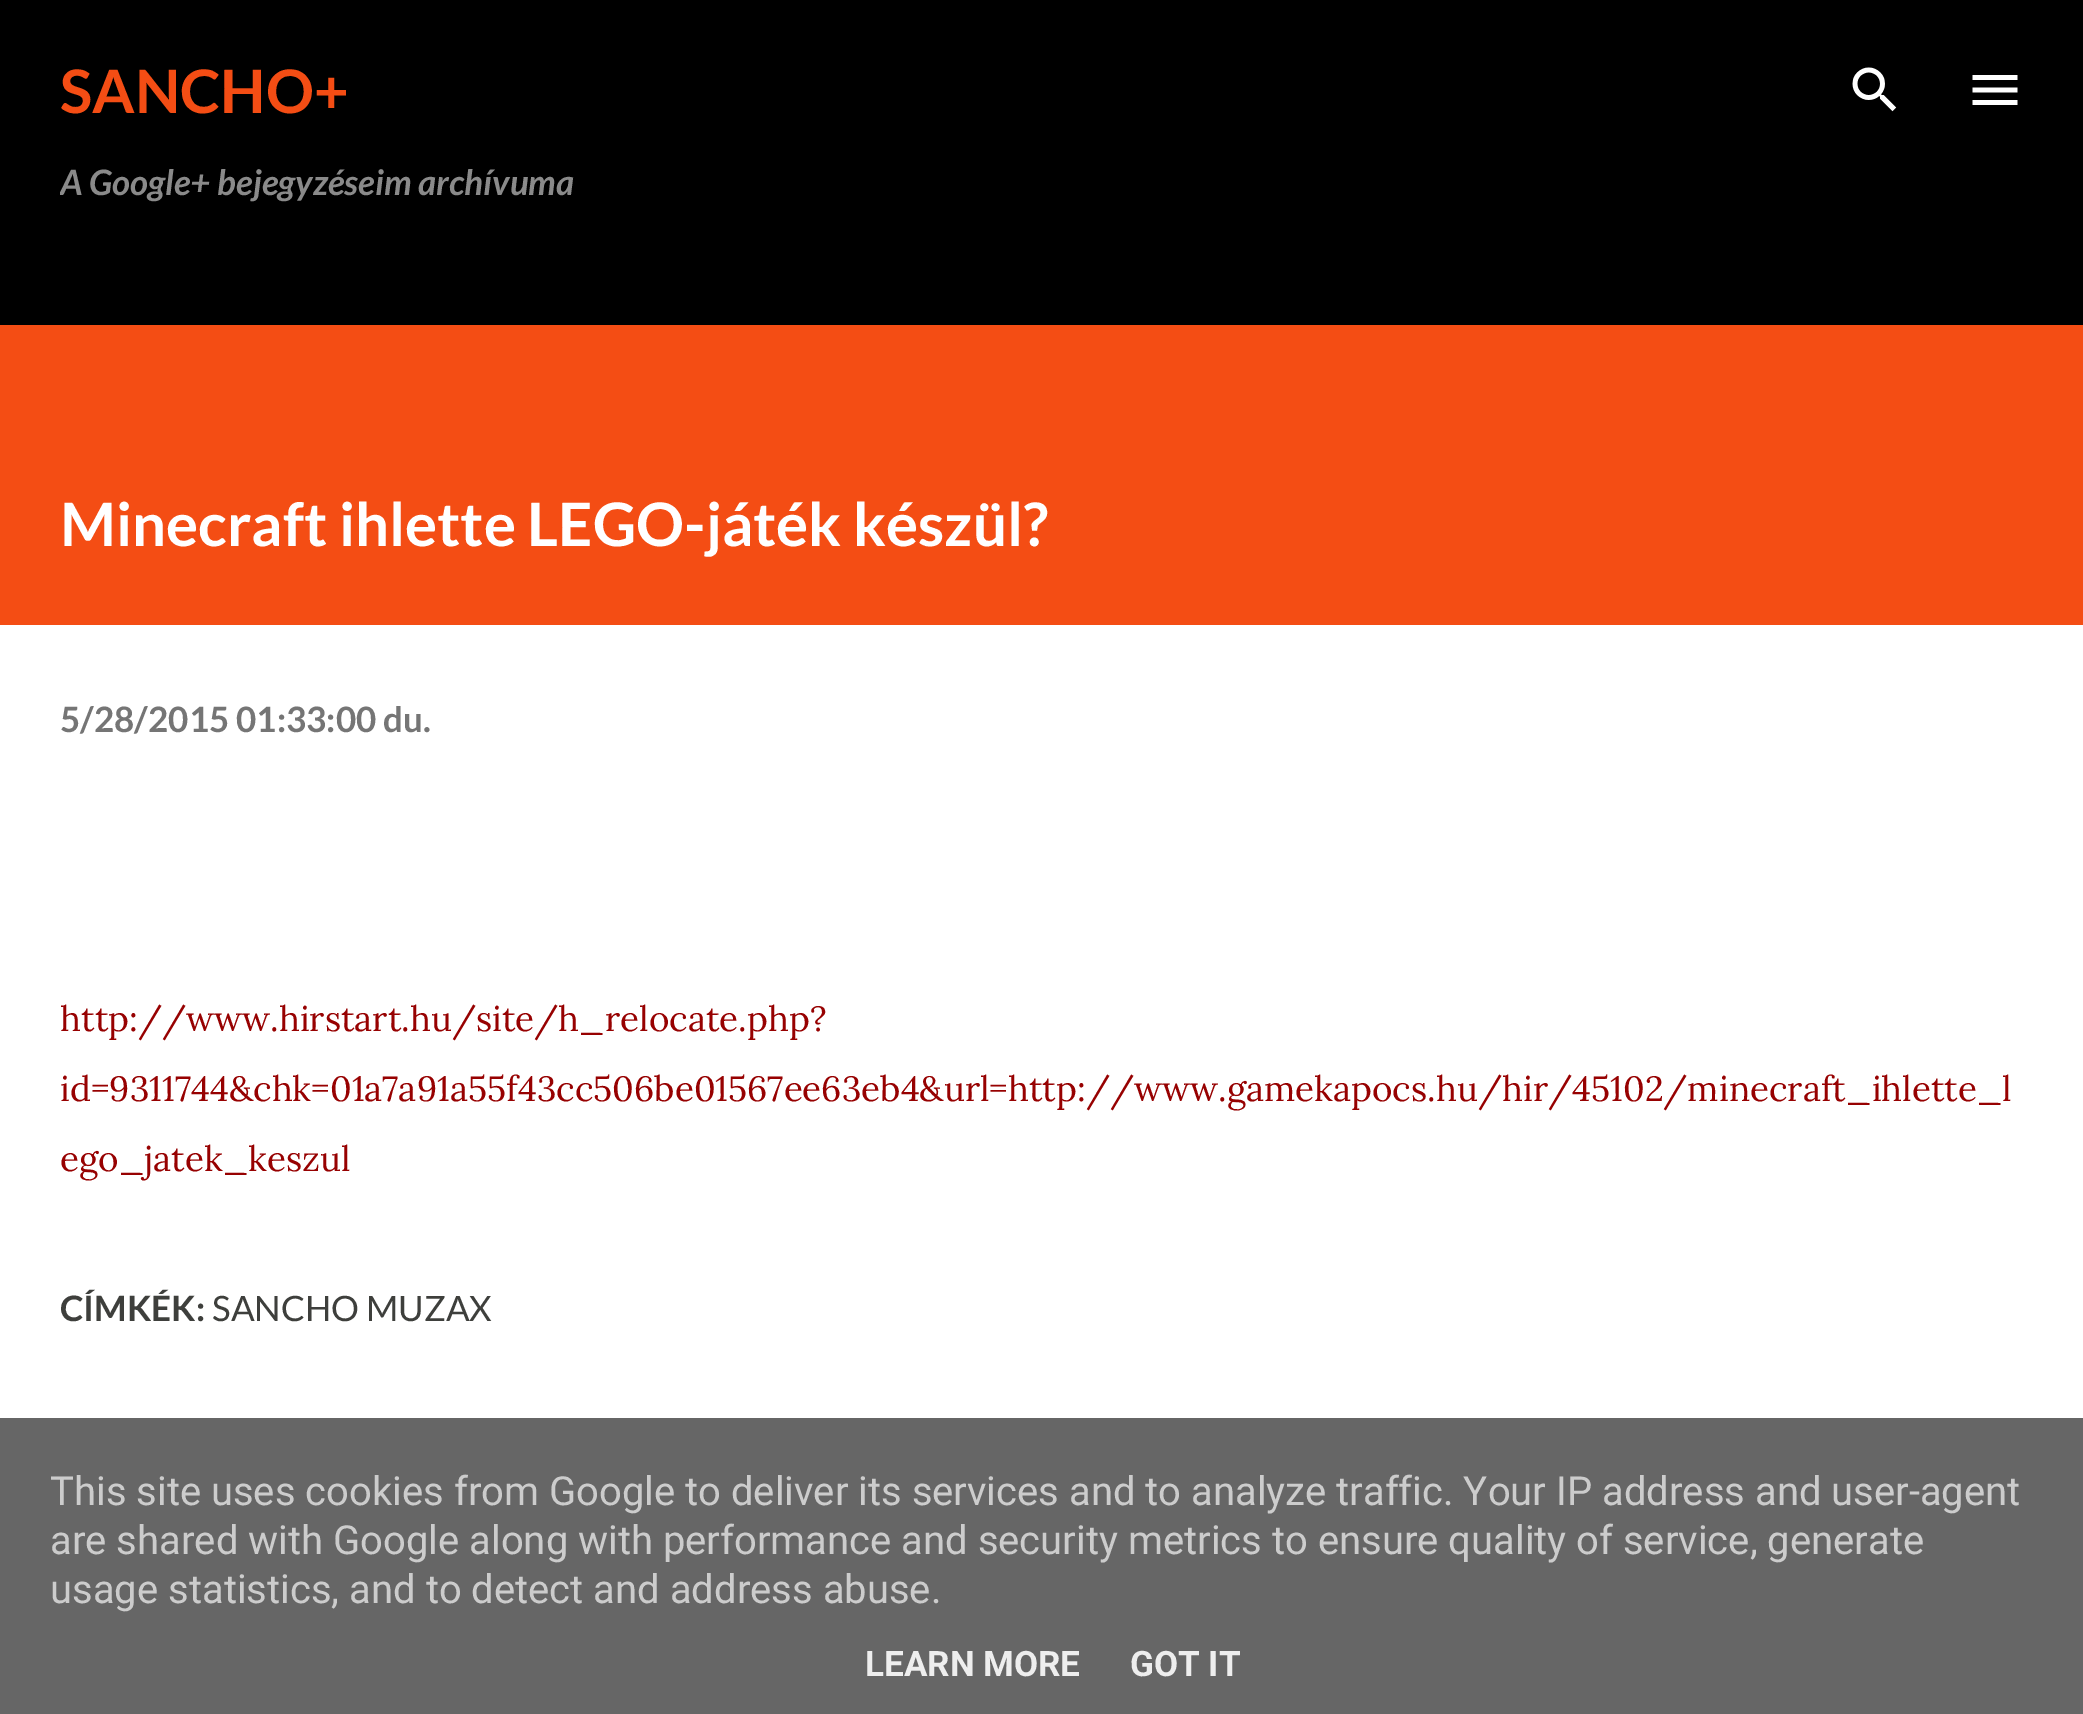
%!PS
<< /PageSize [2083 1714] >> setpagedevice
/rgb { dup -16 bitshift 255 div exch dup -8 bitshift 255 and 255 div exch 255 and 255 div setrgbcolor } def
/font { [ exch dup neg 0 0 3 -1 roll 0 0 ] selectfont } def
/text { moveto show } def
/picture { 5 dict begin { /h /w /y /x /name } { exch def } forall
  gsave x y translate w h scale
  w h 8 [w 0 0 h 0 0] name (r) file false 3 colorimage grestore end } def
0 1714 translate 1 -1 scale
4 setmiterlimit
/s1 { /Lato-Bold 60 font 16#F44D14 rgb } def
/s2 { /Lato-BoldItalic 35 font 16#8A8A8A rgb } def
/s3 { /Lato-Bold 60 font 16#FFFFFF rgb } def
/s4 { /Lato-Bold 35 font 16#757575 rgb } def
/s5 { /Lora-Regular 35 font 16#970101 rgb } def
/s6 { /Lato-Bold 35 font 16#3E3F3C rgb } def
/s7 { /Lato-Regular 35 font 16#3E3F3C rgb } def
/s8 { /Roboto-Regular 40 font 16#CCCCCC rgb } def
/s9 { /Roboto-Bold 35 font 16#EEEEEE rgb } def
16#FFFFFF rgb
0 0 2083 1714 rectfill
16#000000 rgb
0 0 2083 325 rectfill
s1
(SANCHO+) 60 113 text
gsave
60 60 1845 185 rectclip
s2
(A Google+ bejegyzéseim archívuma) 60 195 text
grestore
(pic1.raw) 1852 67 45 45 picture
(pic2.raw) 1972 75 46 30 picture
0 325 2083 300 rectfill
s3
(Minecraft ihlette LEGO-játék készül?) 60 546 text
s4
(5/28/2015 01:33:00 du.) 60 732 text
s5
(http://www.hirstart.hu/site/h_relocate.php?) 60 1031 text
(id=9311744&chk=01a7a91a55f43cc506be01567ee63eb4&url=http://www.gamekapocs.hu/hir/45102/minecraft_ihlette_l) 60 1101 text
(ego_jatek_keszul) 60 1171 text
s6
(CÍMKÉK:) 60 1321 text
s7
(SANCHO MUZAX) 212 1321 text
16#666666 rgb
0 1418 2083 296 rectfill
s8
(This site uses cookies from Google to deliver its services and to analyze traffic. Your IP address and user-agent) 50 1505 text
(are shared with Google along with performance and security metrics to ensure quality of service, generate) 50 1554 text
(usage statistics, and to detect and address abuse.) 50 1603 text
s9
(LEARN MORE) 865 1676 text
(GOT IT) 1130 1676 text
showpage
